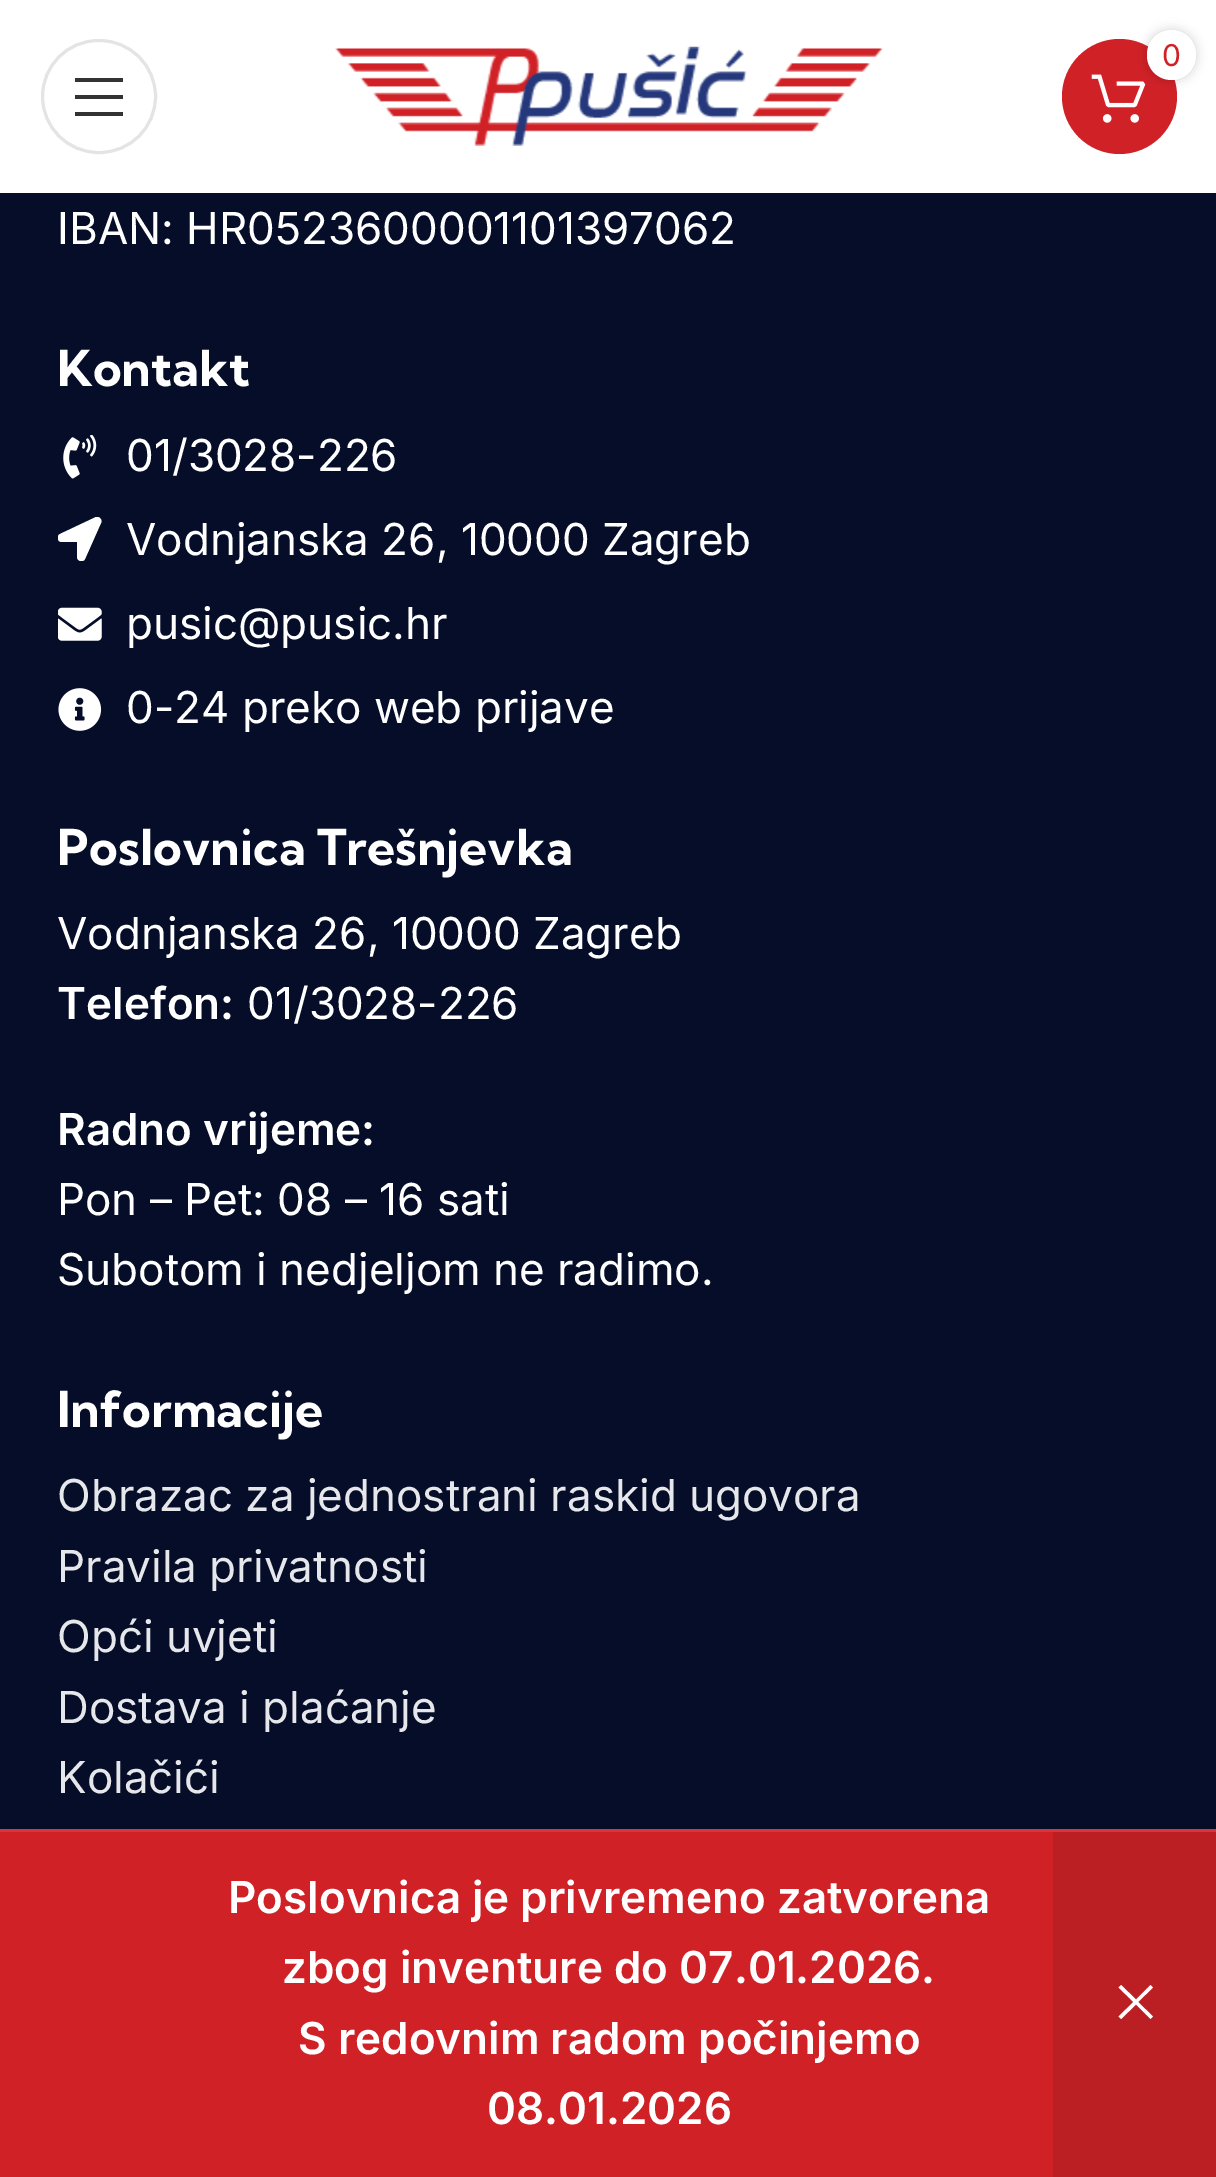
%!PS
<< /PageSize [1216 2177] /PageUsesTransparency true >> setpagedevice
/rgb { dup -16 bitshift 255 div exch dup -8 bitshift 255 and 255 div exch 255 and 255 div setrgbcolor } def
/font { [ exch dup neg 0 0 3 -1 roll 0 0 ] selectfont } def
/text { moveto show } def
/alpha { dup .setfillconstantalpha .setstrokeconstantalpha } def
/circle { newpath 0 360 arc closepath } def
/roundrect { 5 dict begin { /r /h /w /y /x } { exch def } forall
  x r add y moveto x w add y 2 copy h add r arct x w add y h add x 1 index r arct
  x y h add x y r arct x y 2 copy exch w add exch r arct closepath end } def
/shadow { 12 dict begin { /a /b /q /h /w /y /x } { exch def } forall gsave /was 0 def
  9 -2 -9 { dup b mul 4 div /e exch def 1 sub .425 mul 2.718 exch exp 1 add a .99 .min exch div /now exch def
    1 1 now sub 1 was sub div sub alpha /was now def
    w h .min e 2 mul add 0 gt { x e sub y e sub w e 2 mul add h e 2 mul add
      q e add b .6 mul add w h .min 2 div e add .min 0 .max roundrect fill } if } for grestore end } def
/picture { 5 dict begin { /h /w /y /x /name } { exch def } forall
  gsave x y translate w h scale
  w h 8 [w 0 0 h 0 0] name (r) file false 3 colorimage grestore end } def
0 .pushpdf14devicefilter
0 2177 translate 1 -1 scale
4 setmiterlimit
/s1 { /Inter-Regular 30 font 16#D02127 rgb } def
/s2 { /Inter-Regular 44 font 16#FFFFFF rgb } def
/s3 { /KumbhSans-Bold 49.5 font 16#FFFFFF rgb } def
/s4 { /Inter-SemiBold 44 font 16#FFFFFF rgb } def
/s5 { /Inter-Regular 44 font 16#E6E7EA rgb } def
16#050D29 rgb
0 0 1216 2177 rectfill
16#FFFFFF rgb
0 0 1216 193 rectfill
16#E4E4E4 rgb
3 setlinewidth
42.5 40.5 113 112 56 roundrect stroke
16#333333 rgb
75 82 moveto 123 82 lineto 123 78 lineto 75 78 lineto closepath 75 99 moveto 123 99 lineto 123 95 lineto 75 95 lineto closepath 75 116 moveto 123 116 lineto 123 112 lineto 75 112 lineto closepath fill
(pic1.raw) 335 46 548 100 picture
16#D02127 rgb
1119.5 96.5 57.5 circle fill
(pic2.raw) 1091 74 55 49 picture
16#000000 rgb
1147 30 49 50 24.5 5.5 0.17 shadow
16#FFFFFF rgb
1147 30 49 50 24.5 roundrect fill
s1
(0) 1162 66 text
s2
(IBAN: HR0523600001101397062) 57 244 text
s3
(Kontakt) 57 386 text
(pic3.raw) 63 435 34 44 picture
s2
(01/3028-226) 126 471 text
gsave
58 517 44 44 rectclip
96 517 moveto 60 534 lineto 56 536 57 542 62 542 curveto 77 542 lineto 77 557 lineto 77 561 83 563 85 559 curveto 101 523 lineto 103 520 99 516 96 517 curveto closepath fill
grestore
(Vodnjanska 26, 10000 Zagreb) 126 555 text
(pic4.raw) 58 607 44 34 picture
(pusic@pusic.hr) 126 639 text
(pic5.raw) 58 688 44 43 picture
(0-24 preko web prijave) 126 723 text
s3
(Poslovnica Trešnjevka) 57 865 text
s2
(Vodnjanska 26, 10000 Zagreb) 57 949 text
s4
(Telefon:) 57 1019 text
s2
(01/3028-226) 247 1019 text
s4
(Radno vrijeme:) 57 1145 text
s2
(Pon – Pet: 08 – 16 sati) 57 1215 text
(Subotom i nedjeljom ne radimo.) 57 1285 text
s3
(Informacije) 57 1427 text
s5
(Obrazac za jednostrani raskid ugovora) 57 1511 text
(Pravila privatnosti) 57 1582 text
(Opći uvjeti) 57 1652 text
(Dostava i plaćanje) 57 1723 text
(Kolačići) 57 1793 text
16#D02127 rgb
0 1832 1053 345 rectfill
16#D5373D rgb
0 1829 1216 3 rectfill
s4
(Poslovnica je privremeno zatvorena) 228 1913 text
16#BB1E23 rgb
1053 1832 163 345 rectfill
16#FFFFFF rgb
1118.5 1987.5 moveto 1133.5 2002 lineto 1118.5 2016.5 lineto 1121 2019 lineto 1136 2004.5 lineto 1150.5 2019 lineto 1153 2016.5 lineto 1138 2002 lineto 1153 1987.5 lineto 1150.5 1985 lineto 1136 1999.5 lineto 1121 1985 lineto closepath fill
(zbog inventure do 07.01.2026.) 282 1983 text
(S redovnim radom počinjemo) 298 2054 text
(08.01.2026) 487 2124 text
.poppdf14devicefilter showpage
